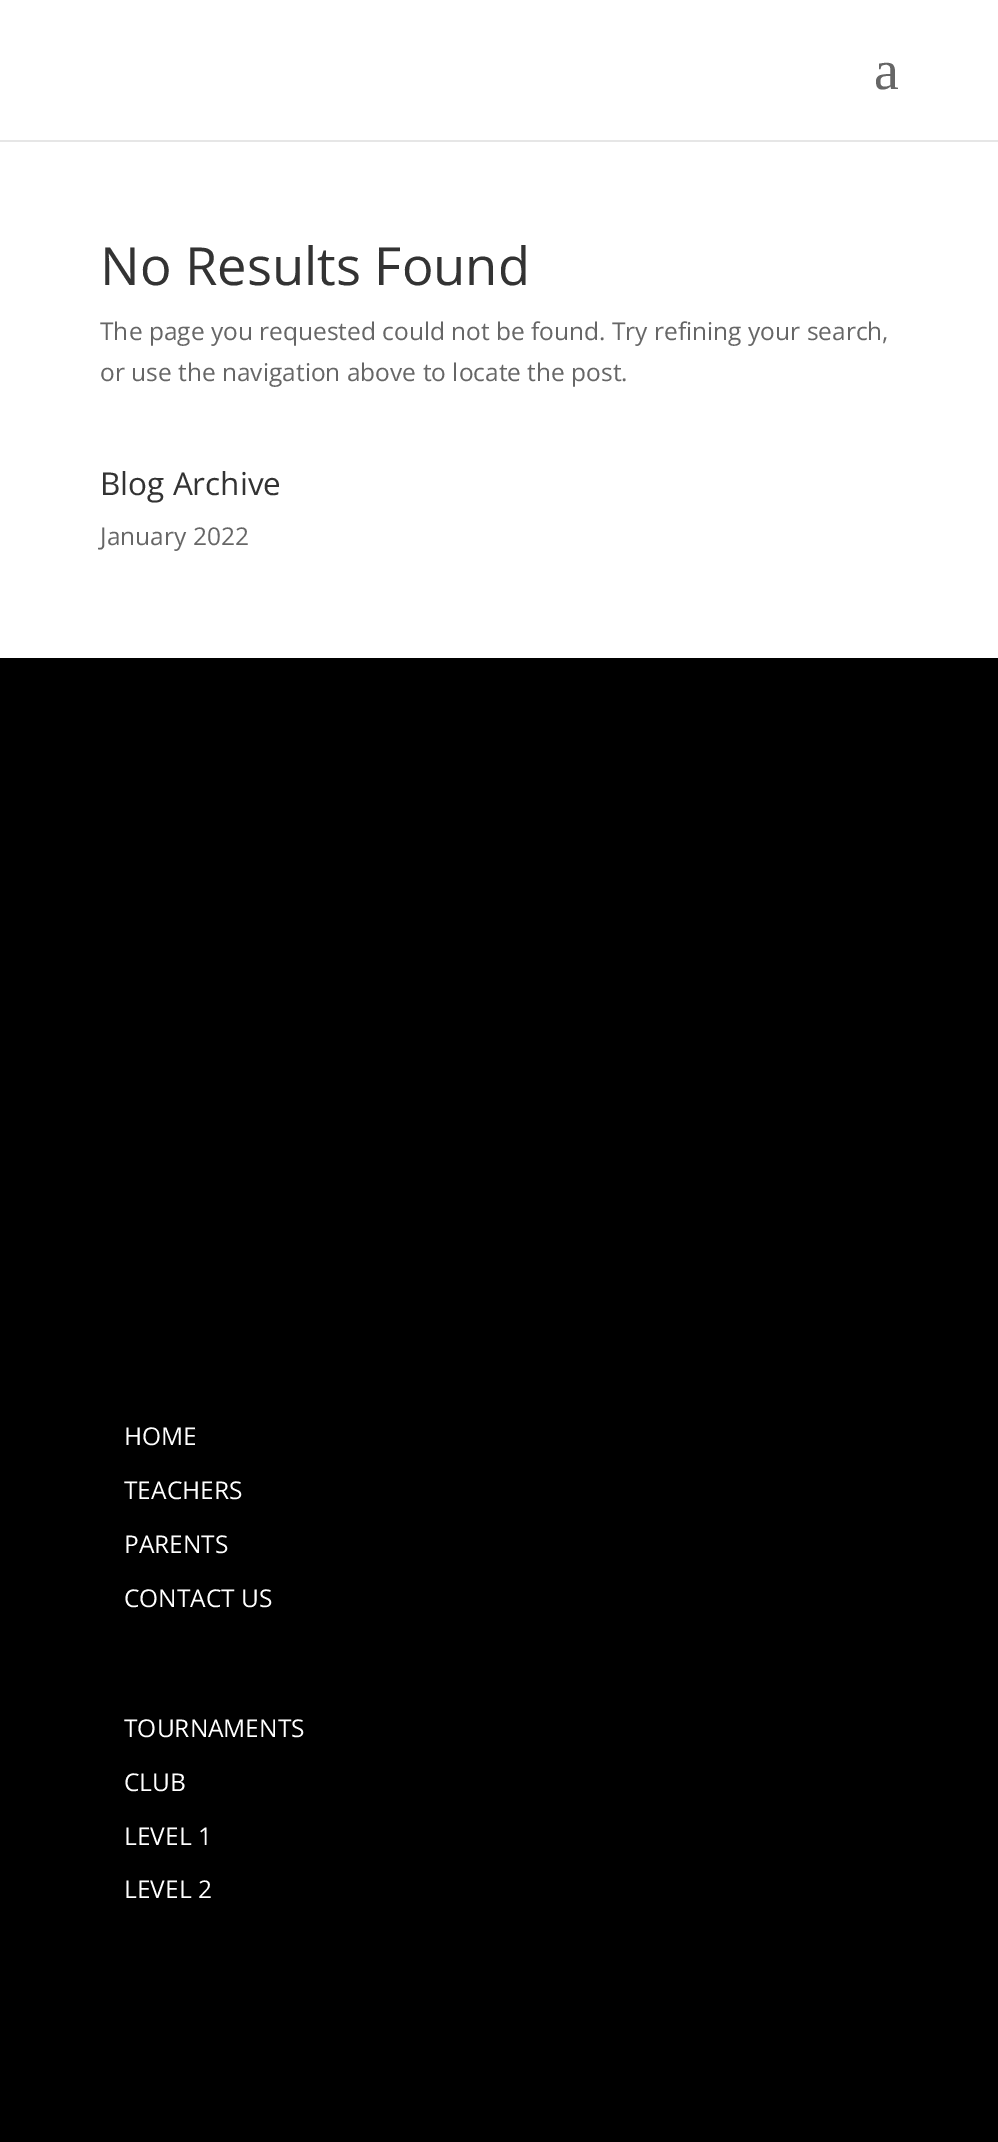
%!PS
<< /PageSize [998 2142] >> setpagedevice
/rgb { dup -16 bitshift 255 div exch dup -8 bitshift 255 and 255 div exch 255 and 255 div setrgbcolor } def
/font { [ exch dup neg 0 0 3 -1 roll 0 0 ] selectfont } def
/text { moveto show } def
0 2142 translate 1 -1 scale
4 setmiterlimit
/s1 { /LiberationSerif-Regular 56 font 16#666666 rgb } def
/s2 { /OpenSans-Regular 52.5 font 16#333333 rgb } def
/s3 { /OpenSans-Regular 24.5 font 16#666666 rgb } def
/s4 { /OpenSans-Regular 31.5 font 16#333333 rgb } def
/s5 { /OpenSans-Regular 24.5 font 16#FFFFFF rgb } def
16#FFFFFF rgb
0 0 998 2142 rectfill
16#E6E6E6 rgb
0 140 998 2 rectfill
s1
(a) 874 89 text
s2
(No Results Found) 100 285 text
s3
(The page you requested could not be found. Try refining your search,) 100 340 text
(or use the navigation above to locate the post.) 100 381 text
s4
(Blog Archive) 100 495 text
s3
(January 2022) 100 545 text
16#000000 rgb
0 658 998 1484 rectfill
s5
(HOME) 124 1445 text
(TEACHERS) 124 1499 text
(PARENTS) 124 1553 text
(CONTACT US) 124 1607 text
(TOURNAMENTS) 124 1737 text
(CLUB) 124 1791 text
(LEVEL 1) 124 1845 text
(LEVEL 2) 124 1898 text
showpage
